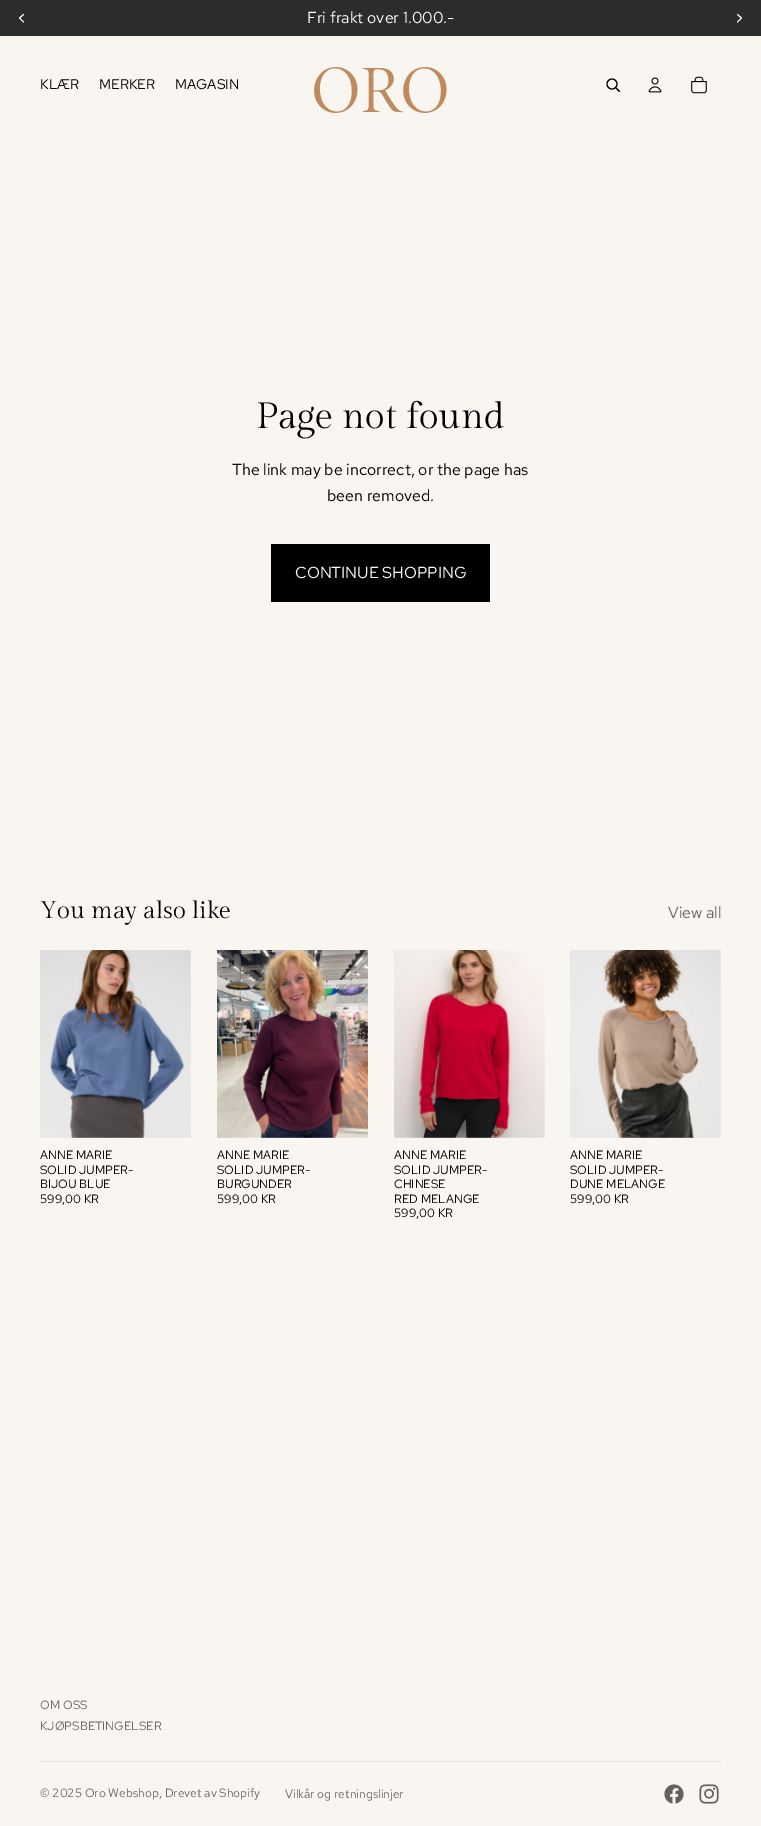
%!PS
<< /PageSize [761 1826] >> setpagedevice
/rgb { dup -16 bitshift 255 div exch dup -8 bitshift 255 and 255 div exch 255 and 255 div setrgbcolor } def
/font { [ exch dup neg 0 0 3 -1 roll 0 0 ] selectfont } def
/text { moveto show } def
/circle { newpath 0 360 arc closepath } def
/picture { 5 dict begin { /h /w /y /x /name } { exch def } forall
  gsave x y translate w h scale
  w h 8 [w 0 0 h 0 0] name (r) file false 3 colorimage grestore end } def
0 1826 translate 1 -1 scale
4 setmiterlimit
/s1 { /RedHatText-Regular 16 font 16#FFFFFF rgb } def
/s2 { /RedHatText-Regular 14 font 16#000000 rgb } def
/s3 { /GildaDisplay-Regular 36.5 font 16#000000 rgb } def
/s4 { /RedHatText-Regular 16 font 16#000000 rgb } def
/s5 { /GildaDisplay-Regular 24 font 16#000000 rgb } def
/s6 { /RedHatText-Regular 16 font 16#666666 rgb } def
/s7 { /RedHatText-Regular 12 font 16#000000 rgb } def
/s8 { /RedHatText-Regular 12 font 16#666666 rgb } def
16#F9F6F2 rgb
0 0 761 1826 rectfill
16#2B2D2D rgb
0 0 761 36 rectfill
s1
(Fri frakt over 1.000.-) 307 23 text
1 setlinecap
1 setlinejoin
23.5 14.5 moveto 19.5 18 lineto 23.5 22 lineto stroke
737.5 14.5 moveto 741.5 18 lineto 737.5 22 lineto stroke
s2
(KLÆR) 40 89 text
(MERKER) 99 89 text
(MAGASIN) 175 89 text
(pic1.raw) 314 67 133 46 picture
1.1 setlinewidth
0 setlinecap
0 setlinejoin
612 84 5 circle stroke
1 setlinecap
1 setlinejoin
616 88 moveto 619.5 91.5 lineto stroke
(pic2.raw) 648 77 14 16 picture
(pic3.raw) 691 76 16 18 picture
s3
(Page not found) 256 428 text
s4
(The link may be incorrect, or the page has) 232 475 text
(been removed.) 327 501 text
271 544 219 58 rectfill
s1
(CONTINUE SHOPPING) 295 578 text
s5
(You may also like) 40 918 text
s6
(View all) 668 918 text
(pic4.raw) 40 950 151 188 picture
s7
(ANNE MARIE) 40 1159 text
(SOLID JUMPER-) 40 1174 text
(BIJOU BLUE) 40 1188 text
(599,00 KR) 40 1203 text
(pic5.raw) 217 950 151 188 picture
(ANNE MARIE) 217 1159 text
(SOLID JUMPER-) 217 1174 text
(BURGUNDER) 217 1188 text
(599,00 KR) 217 1203 text
(pic6.raw) 394 950 151 188 picture
(ANNE MARIE) 394 1159 text
(SOLID JUMPER-) 394 1174 text
(CHINESE) 394 1188 text
(RED MELANGE) 394 1203 text
(599,00 KR) 394 1217 text
(pic7.raw) 570 950 151 188 picture
(ANNE MARIE) 570 1159 text
(SOLID JUMPER-) 570 1174 text
(DUNE MELANGE) 570 1188 text
(599,00 KR) 570 1203 text
s8
(OM OSS) 40 1709 text
(KJØPSBETINGELSER) 40 1730 text
16#E6E6E6 rgb
40 1761 681 1 rectfill
s8
(© 2025 Oro Webshop, Drevet av Shopify) 40 1797 text
(Vilkår og retningslinjer) 285 1798 text
(pic8.raw) 664 1784 20 20 picture
(pic9.raw) 699 1784 20 20 picture
showpage
